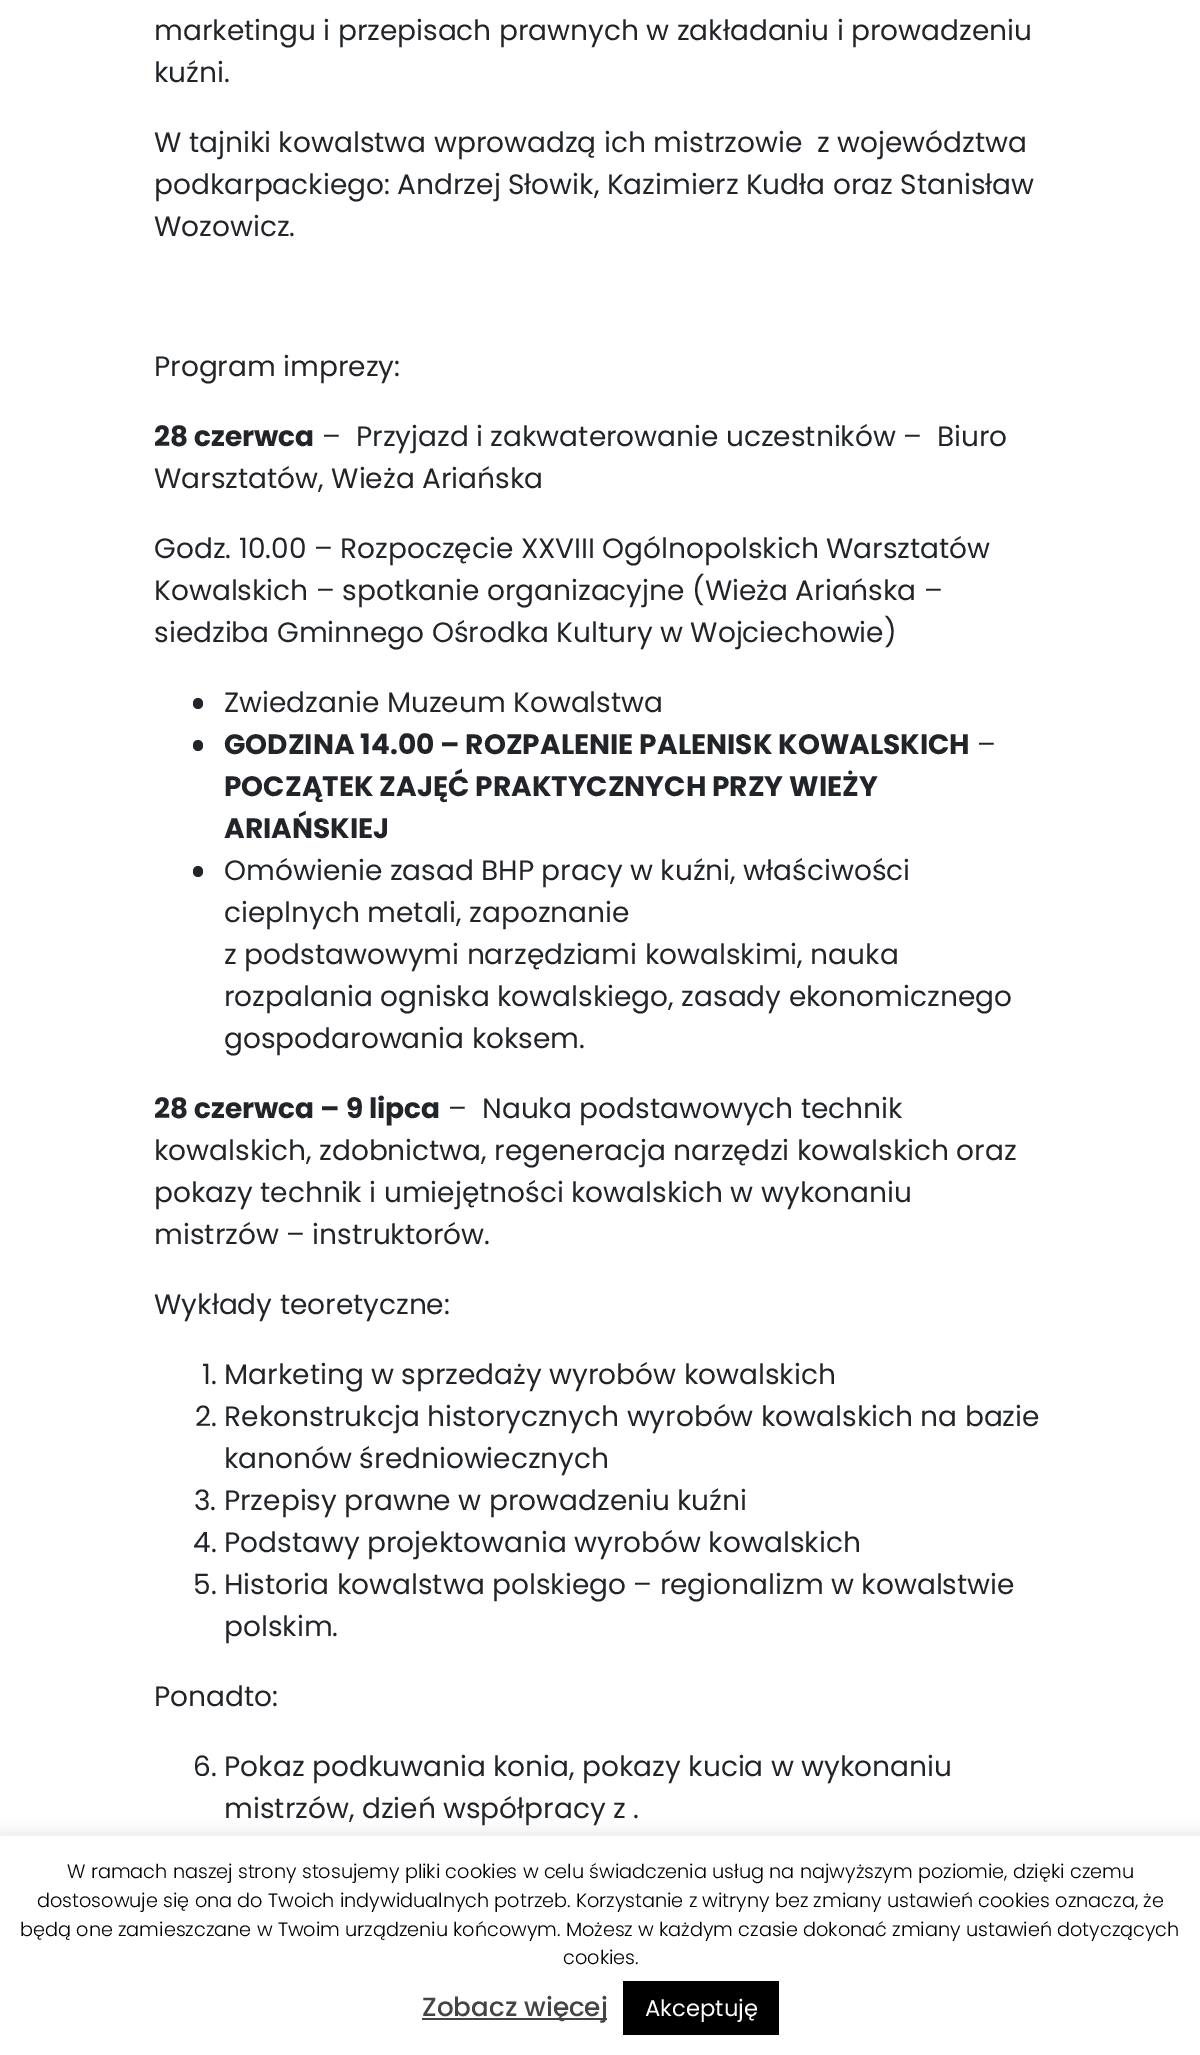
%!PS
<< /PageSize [1200 2055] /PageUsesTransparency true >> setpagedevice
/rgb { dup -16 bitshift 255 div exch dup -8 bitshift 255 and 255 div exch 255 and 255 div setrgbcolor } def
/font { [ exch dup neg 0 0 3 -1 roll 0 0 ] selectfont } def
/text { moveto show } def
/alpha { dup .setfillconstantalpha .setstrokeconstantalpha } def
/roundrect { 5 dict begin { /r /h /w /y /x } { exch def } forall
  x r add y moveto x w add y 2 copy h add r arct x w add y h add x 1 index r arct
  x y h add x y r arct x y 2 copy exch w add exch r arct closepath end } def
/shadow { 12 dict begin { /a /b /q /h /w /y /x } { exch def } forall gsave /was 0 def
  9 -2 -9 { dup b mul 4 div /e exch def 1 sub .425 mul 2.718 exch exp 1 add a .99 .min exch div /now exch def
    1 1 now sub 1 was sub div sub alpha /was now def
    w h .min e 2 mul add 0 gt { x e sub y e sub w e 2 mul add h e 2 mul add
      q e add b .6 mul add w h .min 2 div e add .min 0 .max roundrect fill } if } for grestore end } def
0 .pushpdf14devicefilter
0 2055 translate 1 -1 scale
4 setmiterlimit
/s1 { /Poppins-Regular 28 font 16#212529 rgb } def
/s2 { /Poppins-Bold 28 font 16#212529 rgb } def
/s3 { /Poppins-Light 19.25 font 16#000000 rgb } def
/s4 { /Poppins-Medium 26.25 font 16#444444 rgb } def
/s5 { /Poppins-Regular 22.75 font 16#FFFFFF rgb } def
16#FFFFFF rgb
0 0 1200 2055 rectfill
s1
(marketingu i przepisach prawnych w zakładaniu i prowadzeniu) 154 40 text
(kuźni.) 154 82 text
(W tajniki kowalstwa wprowadzą ich mistrzowie  z województwa) 154 152 text
(podkarpackiego: Andrzej Słowik, Kazimierz Kudła oraz Stanisław) 154 194 text
(Wozowicz.) 154 236 text
(Program imprezy:) 154 376 text
s2
(28 czerwca) 154 446 text
s1
(–  Przyjazd i zakwaterowanie uczestników –  Biuro) 322 446 text
(Warsztatów, Wieża Ariańska) 154 488 text
(Godz. 10.00 – Rozpoczęcie XXVIII Ogólnopolskich Warsztatów) 154 558 text
(Kowalskich – spotkanie organizacyjne \(Wieża Ariańska –) 154 600 text
(siedziba Gminnego Ośrodka Kultury w Wojciechowie\)) 154 642 text
193 698 10 11 5 roundrect fill
(Zwiedzanie Muzeum Kowalstwa) 224 712 text
193 740 10 11 5 roundrect fill
s2
(GODZINA 14.00 – ROZPALENIE PALENISK KOWALSKICH) 224 754 text
s1
(–) 977 754 text
s2
(POCZĄTEK ZAJĘĆ PRAKTYCZNYCH PRZY WIEŻY) 224 796 text
(ARIAŃSKIEJ) 224 838 text
193 866 10 11 5 roundrect fill
s1
(Omówienie zasad BHP pracy w kuźni, właściwości) 224 880 text
(cieplnych metali, zapoznanie) 224 922 text
(z podstawowymi narzędziami kowalskimi, nauka) 224 964 text
(rozpalania ogniska kowalskiego, zasady ekonomicznego) 224 1006 text
(gospodarowania koksem.) 224 1048 text
s2
(28 czerwca – 9 lipca) 154 1118 text
s1
(–  Nauka podstawowych technik) 448 1118 text
(kowalskich, zdobnictwa, regeneracja narzędzi kowalskich oraz) 154 1160 text
(pokazy technik i umiejętności kowalskich w wykonaniu) 154 1202 text
(mistrzów – instruktorów.) 154 1244 text
(Wykłady teoretyczne:) 154 1314 text
(1. Marketing w sprzedaży wyrobów kowalskich) 202 1384 text
(2. Rekonstrukcja historycznych wyrobów kowalskich na bazie) 195 1426 text
(kanonów średniowiecznych) 224 1468 text
(3. Przepisy prawne w prowadzeniu kuźni) 194 1510 text
(4. Podstawy projektowania wyrobów kowalskich) 193 1552 text
(5. Historia kowalstwa polskiego – regionalizm w kowalstwie) 193 1594 text
(polskim.) 224 1636 text
(Ponadto:) 154 1706 text
(6. Pokaz podkuwania konia, pokazy kucia w wykonaniu) 193 1776 text
(mistrzów, dzień współpracy z .) 224 1818 text
16#ACABAB rgb
0 1834 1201 221 0 9 0.3 shadow
16#FFFFFF rgb
0 1836 1200 219 rectfill
s3
(W ramach naszej strony stosujemy pliki cookies w celu świadczenia usług na najwyższym poziomie, dzięki czemu) 67 1878 text
(dostosowuje się ona do Twoich indywidualnych potrzeb. Korzystanie z witryny bez zmiany ustawień cookies oznacza, że) 37 1907 text
(będą one zamieszczane w Twoim urządzeniu końcowym. Możesz w każdym czasie dokonać zmiany ustawień dotyczących) 20 1936 text
(cookies.) 563 1964 text
16#444444 rgb
422 2018 185 2 rectfill
s4
(Zobacz więcej) 422 2016 text
16#000000 rgb
623 1981 156 54 rectfill
s5
(Akceptuję) 645 2016 text
.poppdf14devicefilter showpage
